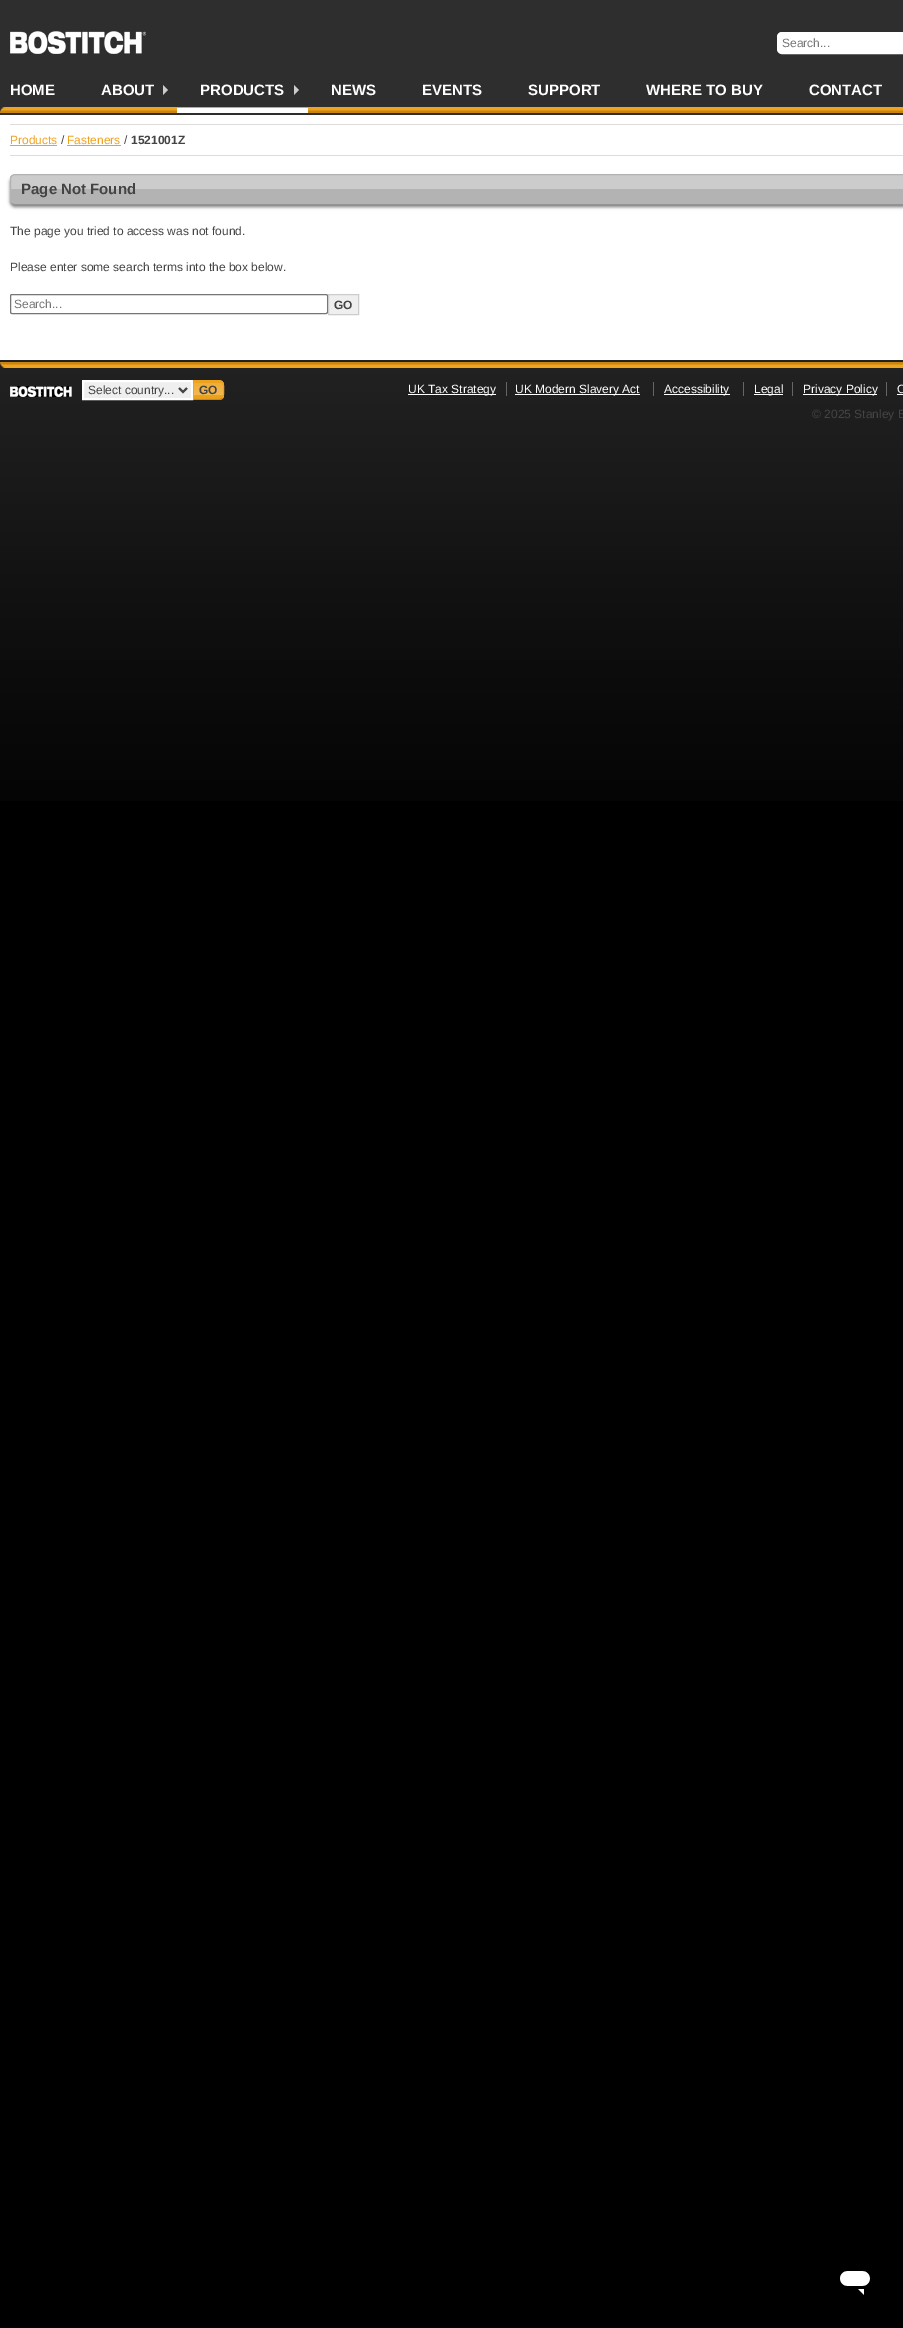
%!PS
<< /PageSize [903 2328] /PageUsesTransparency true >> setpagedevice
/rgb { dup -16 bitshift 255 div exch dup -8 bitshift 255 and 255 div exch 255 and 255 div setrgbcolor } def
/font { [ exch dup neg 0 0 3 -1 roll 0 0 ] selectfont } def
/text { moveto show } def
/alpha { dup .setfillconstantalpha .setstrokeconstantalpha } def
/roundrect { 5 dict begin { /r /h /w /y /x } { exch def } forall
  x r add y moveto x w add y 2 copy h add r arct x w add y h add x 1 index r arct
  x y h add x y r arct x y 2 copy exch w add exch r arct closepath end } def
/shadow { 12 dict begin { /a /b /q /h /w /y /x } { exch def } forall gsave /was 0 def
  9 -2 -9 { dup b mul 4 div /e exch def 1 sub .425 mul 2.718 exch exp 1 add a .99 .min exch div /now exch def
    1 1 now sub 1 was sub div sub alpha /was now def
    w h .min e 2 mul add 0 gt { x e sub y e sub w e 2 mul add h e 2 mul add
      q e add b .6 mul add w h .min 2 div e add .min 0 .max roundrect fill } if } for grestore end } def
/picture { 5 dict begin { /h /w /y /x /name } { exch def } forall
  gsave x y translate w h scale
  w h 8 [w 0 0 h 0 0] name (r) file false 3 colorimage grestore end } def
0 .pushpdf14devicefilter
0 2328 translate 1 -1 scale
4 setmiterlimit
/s1 { /LiberationSans-Regular 12 font 16#757575 rgb } def
/s2 { /LiberationSans-Bold 15 font 16#FFFFFF rgb } def
/s3 { /LiberationSans-Regular 12 font 16#EEA320 rgb } def
/s4 { /LiberationSans-Regular 12 font 16#444444 rgb } def
/s5 { /LiberationSans-Bold 12 font 16#444444 rgb } def
/s6 { /LiberationSans-Bold 15 font 16#444444 rgb } def
/s7 { /LiberationSans-Regular 12 font 16#FFFFFF rgb } def
16#000000 rgb
0 0 903 2328 rectfill
(pic1.raw) 0 0 903 801 picture
(pic2.raw) 10 31 136 23 picture
16#FFFFFF rgb
782 33.5 moveto 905.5 33.5 lineto 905.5 52.5 lineto 782 52.5 lineto 780 52.5 778.5 51 778.5 49 curveto 778.5 37 lineto 778.5 35 780 33.5 782 33.5 curveto closepath gsave fill grestore
3 setlinewidth
stroke
s1
(Search...) 782 47 text
(pic3.raw) 0 107 903 6 picture
s2
(HOME) 10 95 text
(ABOUT) 101 95 text
16#CCCCCC rgb
163 95 moveto 163 85 lineto 168 90 lineto closepath fill
16#FFFFFF rgb
177 108 131 5 rectfill
(PRODUCTS) 200 95 text
16#CCCCCC rgb
294 95 moveto 294 85 lineto 299 90 lineto closepath fill
s2
(NEWS) 331 95 text
(EVENTS) 422 95 text
(SUPPORT) 528 95 text
(WHERE TO BUY) 646 95 text
(CONTACT) 809 95 text
0 115 903 245 rectfill
16#DDDDDD rgb
10 124 893 1 rectfill
10 155 893 1 rectfill
s3
(Products) 10 144 text
10 145 47 1 rectfill
s4
(/) 61 144 text
s3
(Fasteners) 67 144 text
67 145 54 1 rectfill
s4
(/) 124 144 text
s5
(1521001Z) 131 144 text
16#000000 rgb
10 177 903 30 5 1.5 0.5 shadow
gsave
10 174 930 30 5 roundrect clip newpath
16#CCCCCC rgb
10 175 893 14 rectfill
16#B3B3B3 rgb
10 189 893 14 rectfill
grestore
16#B3B3B3 rgb
1 setlinewidth
10.5 174.5 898 29 4.5 roundrect stroke
s6
(Page Not Found) 21 194 text
s4
(The page you tried to access was not found.) 10 235 text
(Please enter some search terms into the box below.) 10 271 text
16#767676 rgb
10.5 294.5 317 19 1.5 roundrect stroke
s1
(Search...) 14 308 text
16#EFEFEF rgb
328.5 294.5 moveto 358.5 294.5 lineto 358.5 314.5 lineto 328.5 314.5 lineto closepath gsave fill grestore
16#CCCCCC rgb
stroke
s5
(GO) 334 309 text
(pic4.raw) 0 362 903 6 picture
(pic5.raw) 10 386 62 11 picture
16#EFEFEF rgb
83 381 moveto 192 381 lineto 192 399 lineto 83 399 lineto closepath gsave fill grestore
16#FFFFFF rgb
2 setlinewidth
stroke
16#444444 rgb
179 388 moveto 183 392 lineto 187 388 lineto stroke
s4
(Select country...) 88 394 text
(pic6.raw) 193 381 31 19 picture
16#EEA320 rgb
193 380 moveto 194 381 lineto 219 381 lineto 220 381 221 381.5 222 382 curveto 222.5 381.5 lineto 222 380.5 220.5 380 219 380 curveto closepath fill
224 395 moveto 224 392 225 383.5 222.5 381.5 curveto 222 382 lineto 223.5 384 223 387.5 223 390 curveto 223 392.5 223.5 396 222 398 curveto 222.5 398.5 lineto 223.5 398 224 396.5 224 395 curveto closepath fill
16#CB8710 rgb
219 400 moveto 220.5 400 222 399.5 222.5 398.5 curveto 222 398 lineto 221 398.5 220 399 219 399 curveto 194 399 lineto 193 400 lineto closepath fill
16#EEA320 rgb
193 380 moveto 193 400 lineto 194 399 lineto 194 381 lineto closepath fill
s5
(GO) 199 394 text
16#FFFFFF rgb
408 394 88 1 rectfill
s7
(UK Tax Strategy) 408 393 text
16#666666 rgb
506 382 1 14 rectfill
16#FFFFFF rgb
515 394 125 1 rectfill
(UK Modern Slavery Act) 515 393 text
664 394 66 1 rectfill
(Accessibility) 664 393 text
16#666666 rgb
653 382 1 14 rectfill
16#FFFFFF rgb
754 394 29 1 rectfill
(Legal) 754 393 text
16#666666 rgb
743 382 1 14 rectfill
16#FFFFFF rgb
803 394 74 1 rectfill
(Privacy Policy) 803 393 text
16#666666 rgb
792 382 1 14 rectfill
s7
(C) 897 393 text
16#666666 rgb
886 382 1 14 rectfill
16#FFFFFF rgb
897 394 6 1 rectfill
s4
(© 2025 Stanley B) 812 418 text
(pic7.raw) 840 2271 30 24 picture
.poppdf14devicefilter showpage
